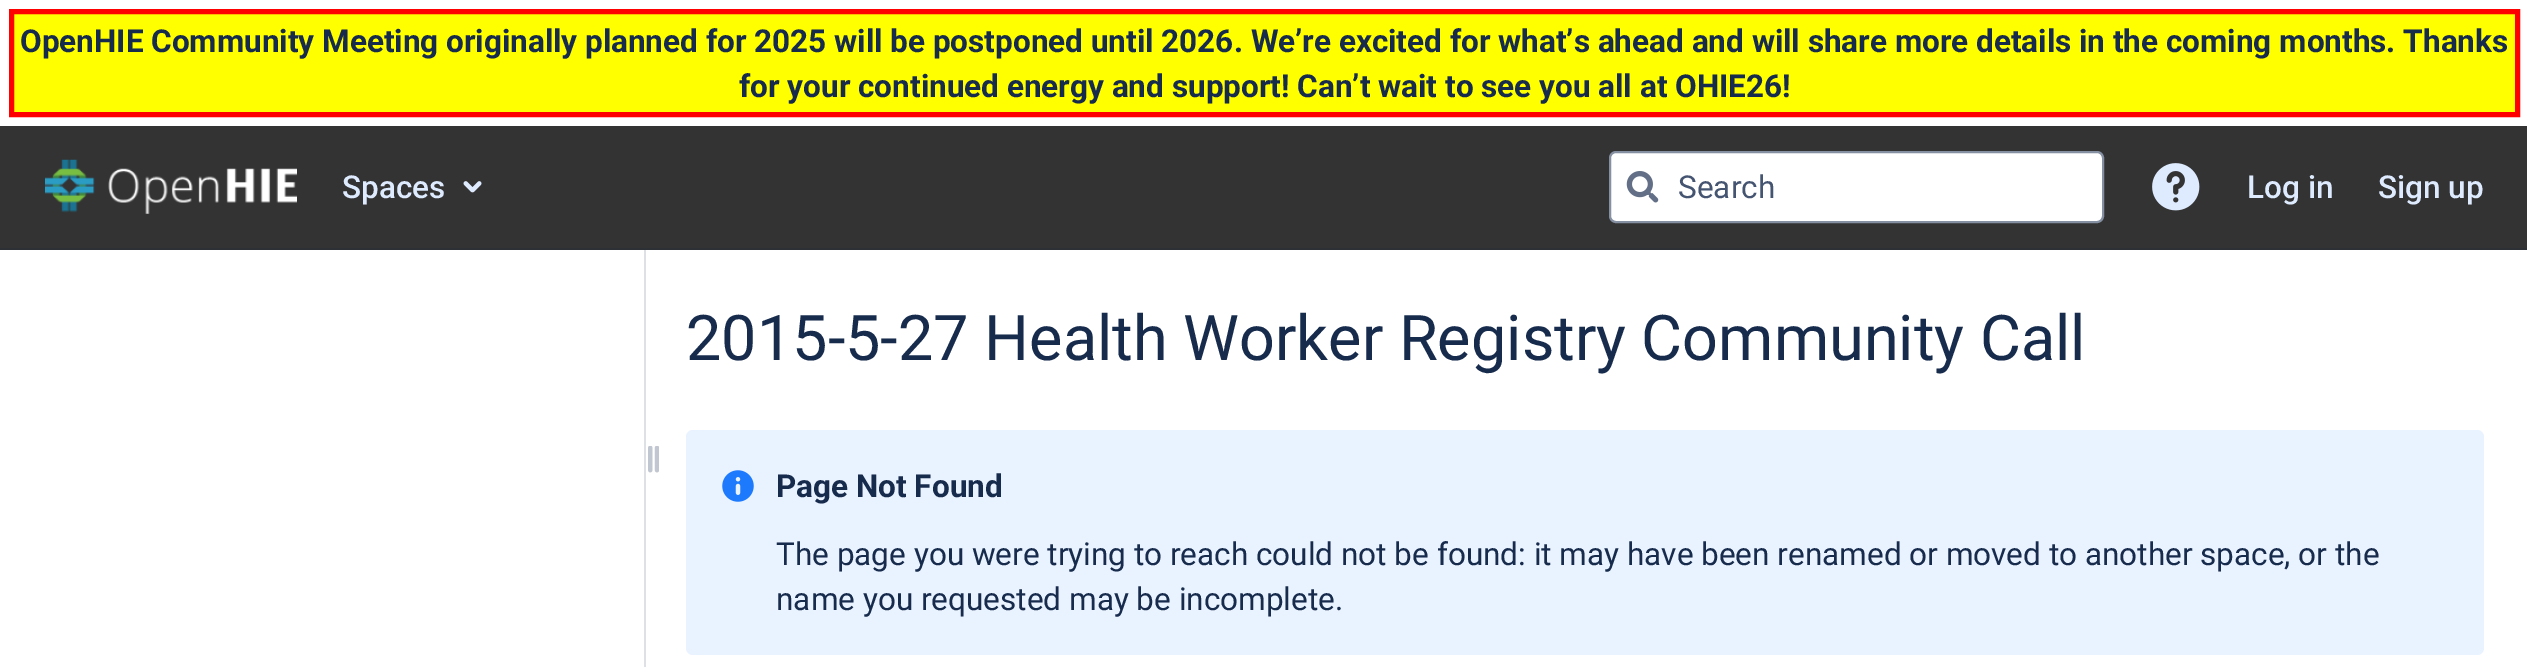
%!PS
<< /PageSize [2527 667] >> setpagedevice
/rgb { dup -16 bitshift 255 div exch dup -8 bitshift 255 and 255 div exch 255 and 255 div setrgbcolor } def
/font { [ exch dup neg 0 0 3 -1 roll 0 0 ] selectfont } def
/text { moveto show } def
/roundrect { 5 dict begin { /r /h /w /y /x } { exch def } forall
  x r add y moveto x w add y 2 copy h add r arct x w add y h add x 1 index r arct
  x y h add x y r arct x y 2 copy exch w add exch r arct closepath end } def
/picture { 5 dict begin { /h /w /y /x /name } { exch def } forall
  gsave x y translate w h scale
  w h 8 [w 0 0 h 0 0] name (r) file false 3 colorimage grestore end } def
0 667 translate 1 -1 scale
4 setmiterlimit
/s1 { /Roboto-Bold 31.5 font 16#172B4D rgb } def
/s2 { /Roboto-Medium 31.5 font 16#DEEBFF rgb } def
/s3 { /Roboto-Regular 31.5 font 16#455571 rgb } def
/s4 { /Roboto-Regular 63 font 16#172B4D rgb } def
/s5 { /Roboto-Regular 31.5 font 16#172B4D rgb } def
16#FFFFFF rgb
0 0 2527 667 rectfill
16#FFFF00 rgb
11.5 11.5 moveto 2517.5 11.5 lineto 2517.5 114.5 lineto 11.5 114.5 lineto closepath gsave fill grestore
16#FF0000 rgb
5 setlinewidth
stroke
s1
(OpenHIE Community Meeting originally planned for 2025 will be postponed until 2026. We’re excited for what’s ahead and will share more details in the coming months. Thanks) 20 52 text
(for your continued energy and support! Can’t wait to see you all at OHIE26!) 739 97 text
16#333333 rgb
0 126 2527 122 rectfill
16#2D3035 rgb
0 248 2527 2 rectfill
(pic1.raw) 45 159 252 55 picture
s2
(Spaces) 342 198 text
(pic2.raw) 463 181 19 12 picture
16#FFFFFF rgb
1610 152 493 70 6 roundrect gsave fill grestore
16#8590A2 rgb
2 setlinewidth
stroke
(pic3.raw) 1626 171 33 32 picture
s3
(Search) 1678 198 text
(pic4.raw) 2152 163 48 48 picture
s2
(Log in) 2247 198 text
(Sign up) 2378 198 text
(pic5.raw) 648 446 11 27 picture
16#DDE0E5 rgb
644 250 2 417 rectfill
s4
(2015-5-27 Health Worker Registry Community Call) 686 360 text
16#E9F2FF rgb
686 430 1798 225 7 roundrect fill
(pic6.raw) 722 470 32 32 picture
s1
(Page Not Found) 776 497 text
s5
(The page you were trying to reach could not be found: it may have been renamed or moved to another space, or the) 776 565 text
(name you requested may be incomplete.) 776 610 text
showpage
